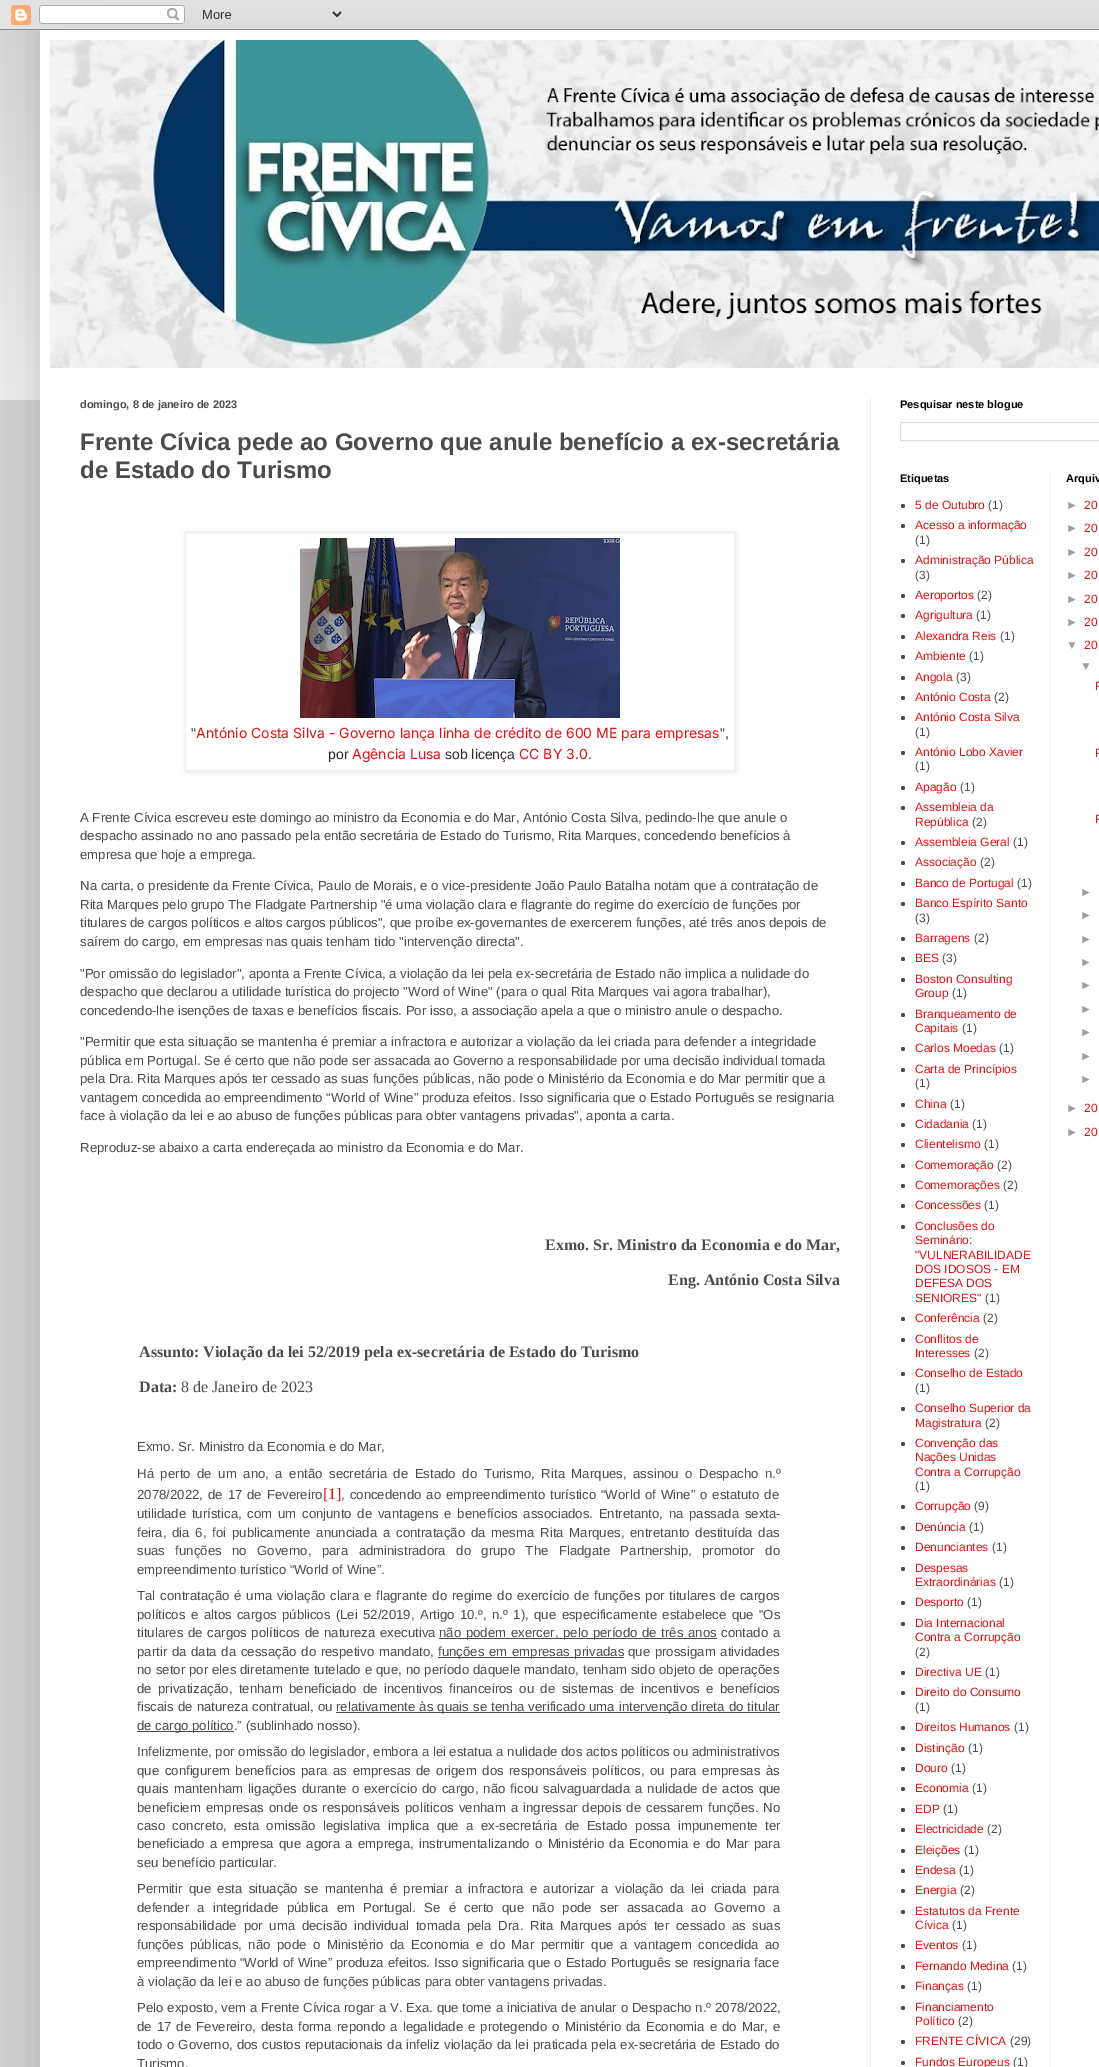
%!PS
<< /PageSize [1099 2067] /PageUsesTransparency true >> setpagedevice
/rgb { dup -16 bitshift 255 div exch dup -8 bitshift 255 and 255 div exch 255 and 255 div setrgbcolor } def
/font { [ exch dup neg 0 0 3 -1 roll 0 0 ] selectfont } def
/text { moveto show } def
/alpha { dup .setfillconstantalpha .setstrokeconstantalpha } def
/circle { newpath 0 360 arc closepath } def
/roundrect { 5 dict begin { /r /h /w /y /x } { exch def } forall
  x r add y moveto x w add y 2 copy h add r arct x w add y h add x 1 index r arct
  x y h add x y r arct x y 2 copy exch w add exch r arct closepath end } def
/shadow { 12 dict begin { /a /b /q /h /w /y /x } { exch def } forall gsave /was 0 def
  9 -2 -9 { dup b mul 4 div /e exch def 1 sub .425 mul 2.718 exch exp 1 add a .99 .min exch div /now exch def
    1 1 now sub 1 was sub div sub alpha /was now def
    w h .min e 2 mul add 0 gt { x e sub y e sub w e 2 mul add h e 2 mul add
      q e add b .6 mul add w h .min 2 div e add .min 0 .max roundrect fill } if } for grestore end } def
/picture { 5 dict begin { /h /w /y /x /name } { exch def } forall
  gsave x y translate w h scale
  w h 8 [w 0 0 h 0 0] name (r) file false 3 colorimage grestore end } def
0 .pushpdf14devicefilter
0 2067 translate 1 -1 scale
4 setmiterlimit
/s1 { /LiberationSans-Bold 11 font 16#4B4B4B rgb } def
/s2 { /LiberationSans-Bold 24 font 16#4B4B4B rgb } def
/s3 { /LiberationSans-Regular 14 font 16#30272E rgb } def
/s4 { /Inter-Regular 14 font 16#DE1313 rgb } def
/s5 { /LiberationSans-Regular 13.2 font 16#4B4B4B rgb } def
/s6 { /LiberationSerif-Bold 16 font 16#4B4B4B rgb } def
/s7 { /LiberationSerif-Regular 16 font 16#4B4B4B rgb } def
/s8 { /LiberationSerif-Regular 16 font 16#DE1313 rgb } def
/s9 { /LiberationSans-Bold 11 font 16#000000 rgb } def
/s10 { /LiberationSans-Regular 12 font 16#DE1313 rgb } def
/s11 { /LiberationSans-Regular 12 font 16#4B4B4B rgb } def
/s12 { /LiberationSans-Regular 12 font 16#9E9E9E rgb } def
16#D1D1D1 rgb
0 0 1099 2067 rectfill
(pic2.raw) 0 27 1099 373 picture
16#000000 rgb
40 30 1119 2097 0 20 0.15 shadow
(pic1.raw) 0 0 1099 30 picture
16#FFFFFF rgb
40 30 1059 2037 rectfill
(pic3.raw) 50 40 1049 328 picture
16#F0F0F0 rgb
870 398 1 1669 rectfill
s1
(domingo, 8 de janeiro de 2023) 80 408 text
s2
(Frente Cívica pede ao Governo que anule benefício a ex-secretária) 80 450 text
(de Estado do Turismo) 80 478 text
gsave
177 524 moveto 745 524 lineto 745 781 lineto 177 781 lineto closepath 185 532 moveto 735 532 lineto 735 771 lineto 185 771 lineto closepath eoclip newpath
16#000000 rgb
186 533 550 239 0 2.5 0.1 shadow
grestore
16#F0F0F0 rgb
185.5 532.5 549 238 rectstroke
(pic4.raw) 300 538 320 180 picture
s3
(") 191 738 text
s4
(António Costa Silva - Governo lança linha de crédito de 600 ME para empresas) 196 738 text
s3
(",) 720 738 text
(por) 328 759 text
s4
(Agência Lusa) 352 759 text
s3
(sob licença) 445 759 text
s4
(CC BY 3.0) 519 759 text
s3
(.) 588 759 text
s5
(A Frente Cívica escreveu este domingo ao ministro da Economia e do Mar, António Costa Silva, pedindo-lhe que anule o) 80 822 text
(despacho assinado no ano passado pela então secretária de Estado do Turismo, Rita Marques, concedendo benefícios à) 80 840 text
(empresa que hoje a emprega.) 80 859 text
(Na carta, o presidente da Frente Cívica, Paulo de Morais, e o vice-presidente João Paulo Batalha notam que a contratação de) 80 890 text
(Rita Marques pelo grupo The Fladgate Partnership "é uma violação clara e flagrante do regime do exercício de funções por) 80 909 text
(titulares de cargos políticos e altos cargos públicos", que proíbe ex-governantes de exercerem funções, até três anos depois de) 80 927 text
(saírem do cargo, em empresas nas quais tenham tido "intervenção directa".) 80 946 text
("Por omissão do legislador", aponta a Frente Cívica, a violação da lei pela ex-secretária de Estado não implica a nulidade do) 80 978 text
(despacho que declarou a utilidade turística do projecto "Word of Wine" \(para o qual Rita Marques vai agora trabalhar\),) 80 996 text
(concedendo-lhe isenções de taxas e benefícios fiscais. Por isso, a associação apela a que o ministro anule o despacho.) 80 1015 text
("Permitir que esta situação se mantenha é premiar a infractora e autorizar a violação da lei criada para defender a integridade) 80 1046 text
(pública em Portugal. Se é certo que não pode ser assacada ao Governo a responsabilidade por uma decisão individual tomada) 80 1065 text
(pela Dra. Rita Marques após ter cessado as suas funções públicas, não pode o Ministério da Economia e do Mar permitir que a) 80 1083 text
(vantagem concedida ao empreendimento “World of Wine” produza efeitos. Isso significaria que o Estado Português se resignaria) 80 1102 text
(face à violação da lei e ao abuso de funções públicas para obter vantagens privadas", aponta a carta.) 80 1120 text
(Reproduz-se abaixo a carta endereçada ao ministro da Economia e do Mar.) 80 1152 text
s6
(Exmo. Sr. Ministro da Economia e do Mar,) 545 1250 text
(Eng. António Costa Silva) 668 1285 text
(Assunto: Violação da lei 52/2019 pela ex-secretária de Estado do Turismo) 139 1357 text
(Data:) 139 1392 text
s7
(8 de Janeiro de 2023) 181 1392 text
s5
(Exmo. Sr. Ministro da Economia e do Mar,) 137 1451 text
137 1478 moveto 2.9 0 32 (Há perto de um ano, a então secretária de Estado do Turismo, Rita Marques, assinou o Despacho n.º) widthshow
137 1499 moveto 1.25 0 32 (2078/2022, de 17 de Fevereiro) widthshow
s8
([1]) 323 1499 text
/LiberationSans-Regular 13.2 font
16#4B4B4B rgb
341 1499 moveto 1.25 0 32 (, concedendo ao empreendimento turístico “World of Wine” o estatuto de) widthshow
137 1518 moveto 2 0 32 (utilidade turística, com um conjunto de vantagens e benefícios associados. Entretanto, na passada sexta-) widthshow
137 1537 moveto 2.1 0 32 (feira, dia 6, foi publicamente anunciada a contratação da mesma Rita Marques, entretanto destituída das) widthshow
137 1555 moveto 6.75 0 32 (suas funções no Governo, para administradora do grupo The Fladgate Partnership, promotor do) widthshow
(empreendimento turístico “World of Wine”.) 137 1574 text
137 1600 moveto 1.25 0 32 (Tal contratação é uma violação clara e flagrante do regime do exercício de funções por titulares de cargos) widthshow
137 1619 moveto 1.75 0 32 (políticos e altos cargos públicos \(Lei 52/2019, Artigo 10.º, n.º 1\), que especificamente estabelece que “Os) widthshow
137 1637 moveto 1 0 32 (titulares de cargos políticos de natureza executiva) widthshow
439 1638 278 1 rectfill
439 1637 moveto 1 0 32 (não podem exercer, pelo período de três anos) widthshow
721 1637 moveto 1 0 32 (contado a) widthshow
137 1656 moveto 1 0 32 (partir da data da cessação do respetivo mandato,) widthshow
438 1657 186 1 rectfill
438 1656 moveto 1 0 32 (funções em empresas privadas) widthshow
628 1656 moveto 1 0 32 (que prossigam atividades) widthshow
137 1674 moveto 0.3 0 32 (no setor por eles diretamente tutelado e que, no período daquele mandato, tenham sido objeto de operações) widthshow
137 1693 moveto 2.75 0 32 (de privatização, tenham beneficiado de incentivos financeiros ou de sistemas de incentivos e benefícios) widthshow
137 1711 moveto 0.5 0 32 (fiscais de natureza contratual, ou) widthshow
336 1712 444 1 rectfill
336 1711 moveto 0.5 0 32 (relativamente às quais se tenha verificado uma intervenção direta do titular) widthshow
137 1731 97 1 rectfill
(de cargo político.” \(sublinhado nosso\).) 137 1730 text
(Infelizmente, por omissão do legislador, embora a lei estatua a nulidade dos actos políticos ou administrativos) 137 1756 text
137 1775 moveto 1.9 0 32 (que configurem benefícios para as empresas de origem dos responsáveis políticos, ou para empresas às) widthshow
137 1793 moveto 1.4 0 32 (quais mantenham ligações durante o exercício do cargo, não ficou salvaguardada a nulidade de actos que) widthshow
137 1812 moveto 1.4 0 32 (beneficiem empresas onde os responsáveis políticos venham a ingressar depois de cessarem funções. No) widthshow
137 1830 moveto 3.75 0 32 (caso concreto, esta omissão legislativa implica que a ex-secretária de Estado possa impunemente ter) widthshow
137 1848 moveto 1.6 0 32 (beneficiado a empresa que agora a emprega, instrumentalizando o Ministério da Economia e do Mar para) widthshow
(seu benefício particular.) 137 1867 text
137 1893 moveto 2.75 0 32 (Permitir que esta situação se mantenha é premiar a infractora e autorizar a violação da lei criada para) widthshow
137 1912 moveto 4.6 0 32 (defender a integridade pública em Portugal. Se é certo que não pode ser assacada ao Governo a) widthshow
137 1930 moveto 3.1 0 32 (responsabilidade por uma decisão individual tomada pela Dra. Rita Marques após ter cessado as suas) widthshow
137 1949 moveto 2.9 0 32 (funções públicas, não pode o Ministério da Economia e do Mar permitir que a vantagem concedida ao) widthshow
137 1967 moveto 0.25 0 32 (empreendimento “World of Wine” produza efeitos. Isso significaria que o Estado Português se resignaria face) widthshow
(à violação da lei e ao abuso de funções públicas para obter vantagens privadas.) 137 1986 text
137 2012 moveto 0.25 0 32 (Pelo exposto, vem a Frente Cívica rogar a V. Exa. que tome a iniciativa de anular o Despacho n.º 2078/2022,) widthshow
137 2031 moveto 1.4 0 32 (de 17 de Fevereiro, desta forma repondo a legalidade e protegendo o Ministério da Economia e do Mar, e) widthshow
137 2049 moveto 0.5 0 32 (todo o Governo, dos custos reputacionais da infeliz violação da lei praticada pela ex-secretária de Estado do) widthshow
(Turismo.) 137 2068 text
s9
(Pesquisar neste blogue) 900 408 text
16#DDDDDD rgb
900.5 422.5 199 18 rectstroke
s9
(Etiquetas) 900 482 text
16#4B4B4B rgb
903 506 2 circle fill
s10
(5 de Outubro) 915 509 text
s11
(\(1\)) 988 509 text
903 526 2 circle fill
s10
(Acesso a informação) 915 529 text
s11
(\(1\)) 915 544 text
903 561 2 circle fill
s10
(Administração Pública) 915 564 text
s11
(\(3\)) 915 579 text
903 596 2 circle fill
s10
(Aeroportos) 915 599 text
s11
(\(2\)) 977 599 text
903 616 2 circle fill
s10
(Agrigultura) 915 619 text
s11
(\(1\)) 976 619 text
903 637 2 circle fill
s10
(Alexandra Reis) 915 640 text
s11
(\(1\)) 1000 640 text
903 657 2 circle fill
s10
(Ambiente) 915 660 text
s11
(\(1\)) 969 660 text
903 678 2 circle fill
s10
(Angola) 915 681 text
s11
(\(3\)) 956 681 text
903 698 2 circle fill
s10
(António Costa) 915 701 text
s11
(\(2\)) 994 701 text
903 718 2 circle fill
s10
(António Costa Silva) 915 721 text
s11
(\(1\)) 915 736 text
903 753 2 circle fill
s10
(António Lobo Xavier) 915 756 text
s11
(\(1\)) 915 770 text
903 788 2 circle fill
s10
(Apagão) 915 791 text
s11
(\(1\)) 960 791 text
903 808 2 circle fill
s10
(Assembleia da) 915 811 text
(República) 915 826 text
s11
(\(2\)) 972 826 text
903 843 2 circle fill
s10
(Assembleia Geral) 915 846 text
s11
(\(1\)) 1013 846 text
903 863 2 circle fill
s10
(Associação) 915 866 text
s11
(\(2\)) 980 866 text
903 884 2 circle fill
s10
(Banco de Portugal) 915 887 text
s11
(\(1\)) 1017 887 text
903 904 2 circle fill
s10
(Banco Espírito Santo) 915 907 text
s11
(\(3\)) 915 922 text
903 939 2 circle fill
s10
(Barragens) 915 942 text
s11
(\(2\)) 974 942 text
903 959 2 circle fill
s10
(BES) 915 962 text
s11
(\(3\)) 942 962 text
903 980 2 circle fill
s10
(Boston Consulting) 915 983 text
(Group) 915 997 text
s11
(\(1\)) 952 997 text
903 1015 2 circle fill
s10
(Branqueamento de) 915 1018 text
(Capitais) 915 1032 text
s11
(\(1\)) 962 1032 text
903 1049 2 circle fill
s10
(Carlos Moedas) 915 1052 text
s11
(\(1\)) 999 1052 text
903 1070 2 circle fill
s10
(Carta de Princípios) 915 1073 text
s11
(\(1\)) 915 1087 text
903 1105 2 circle fill
s10
(China) 915 1108 text
s11
(\(1\)) 950 1108 text
903 1125 2 circle fill
s10
(Cidadania) 915 1128 text
s11
(\(1\)) 972 1128 text
903 1145 2 circle fill
s10
(Clientelismo) 915 1148 text
s11
(\(1\)) 984 1148 text
903 1166 2 circle fill
s10
(Comemoração) 915 1169 text
s11
(\(2\)) 997 1169 text
903 1186 2 circle fill
s10
(Comemorações) 915 1189 text
s11
(\(2\)) 1003 1189 text
903 1206 2 circle fill
s10
(Concessões) 915 1209 text
s11
(\(1\)) 984 1209 text
903 1227 2 circle fill
s10
(Conclusões do) 915 1230 text
(Seminário:) 915 1244 text
("VULNERABILIDADE) 915 1259 text
(DOS IDOSOS - EM) 915 1273 text
(DEFESA DOS) 915 1287 text
(SENIORES") 915 1302 text
s11
(\(1\)) 985 1302 text
903 1319 2 circle fill
s10
(Conferência) 915 1322 text
s11
(\(2\)) 983 1322 text
903 1340 2 circle fill
s10
(Conflitos de) 915 1343 text
(Interesses) 915 1357 text
s11
(\(2\)) 974 1357 text
903 1374 2 circle fill
s10
(Conselho de Estado) 915 1377 text
s11
(\(1\)) 915 1392 text
903 1409 2 circle fill
s10
(Conselho Superior da) 915 1412 text
(Magistratura) 915 1427 text
s11
(\(2\)) 985 1427 text
903 1444 2 circle fill
s10
(Convenção das) 915 1447 text
(Nações Unidas) 915 1461 text
(Contra a Corrupção) 915 1476 text
s11
(\(1\)) 915 1490 text
903 1507 2 circle fill
s10
(Corrupção) 915 1510 text
s11
(\(9\)) 974 1510 text
903 1528 2 circle fill
s10
(Denúncia) 915 1531 text
s11
(\(1\)) 969 1531 text
903 1548 2 circle fill
s10
(Denunciantes) 915 1551 text
s11
(\(1\)) 992 1551 text
903 1569 2 circle fill
s10
(Despesas) 915 1572 text
(Extraordinárias) 915 1586 text
s11
(\(1\)) 999 1586 text
903 1603 2 circle fill
s10
(Desporto) 915 1606 text
s11
(\(1\)) 967 1606 text
903 1624 2 circle fill
s10
(Dia Internacional) 915 1627 text
(Contra a Corrupção) 915 1641 text
s11
(\(2\)) 915 1656 text
903 1673 2 circle fill
s10
(Directiva UE) 915 1676 text
s11
(\(1\)) 985 1676 text
903 1693 2 circle fill
s10
(Direito do Consumo) 915 1696 text
s11
(\(1\)) 915 1711 text
903 1728 2 circle fill
s10
(Direitos Humanos) 915 1731 text
s11
(\(1\)) 1014 1731 text
903 1749 2 circle fill
s10
(Distinção) 915 1752 text
s11
(\(1\)) 968 1752 text
903 1769 2 circle fill
s10
(Douro) 915 1772 text
s11
(\(1\)) 951 1772 text
903 1789 2 circle fill
s10
(Economia) 915 1792 text
s11
(\(1\)) 972 1792 text
903 1810 2 circle fill
s10
(EDP) 915 1813 text
s11
(\(1\)) 943 1813 text
903 1830 2 circle fill
s10
(Electricidade) 915 1833 text
s11
(\(2\)) 987 1833 text
903 1851 2 circle fill
s10
(Eleições) 915 1854 text
s11
(\(1\)) 964 1854 text
903 1871 2 circle fill
s10
(Endesa) 915 1874 text
s11
(\(1\)) 959 1874 text
903 1891 2 circle fill
s10
(Energia) 915 1894 text
s11
(\(2\)) 960 1894 text
903 1912 2 circle fill
s10
(Estatutos da Frente) 915 1915 text
(Cívica) 915 1929 text
s11
(\(1\)) 952 1929 text
903 1946 2 circle fill
s10
(Eventos) 915 1949 text
s11
(\(1\)) 962 1949 text
903 1967 2 circle fill
s10
(Fernando Medina) 915 1970 text
s11
(\(1\)) 1012 1970 text
903 1987 2 circle fill
s10
(Finanças) 915 1990 text
s11
(\(1\)) 967 1990 text
903 2008 2 circle fill
s10
(Financiamento) 915 2011 text
(Político) 915 2025 text
s11
(\(2\)) 958 2025 text
903 2042 2 circle fill
s10
(FRENTE CÍVICA) 915 2045 text
s11
(\(29\)) 1010 2045 text
903 2063 2 circle fill
s10
(Fundos Europeus) 915 2066 text
s11
(\(1\)) 1013 2066 text
16#F0F0F0 rgb
1050 472 1 1595 rectfill
s9
(Arquiv) 1066 482 text
s12
(►) 1066 509 text
s10
(20) 1084 509 text
s12
(►) 1066 532 text
s10
(20) 1084 532 text
s12
(►) 1066 556 text
s10
(20) 1084 556 text
s12
(►) 1066 579 text
s10
(20) 1084 579 text
s12
(►) 1066 603 text
s10
(20) 1084 603 text
s12
(►) 1066 626 text
s10
(20) 1084 626 text
s12
(▼) 1066 649 text
s10
(20) 1084 649 text
s12
(▼) 1080 670 text
s10
(F) 1095 690 text
(F) 1095 757 text
(F) 1095 823 text
s12
(►) 1080 896 text
(►) 1080 919 text
(►) 1080 943 text
(►) 1080 966 text
(►) 1080 989 text
(►) 1080 1013 text
(►) 1080 1036 text
(►) 1080 1060 text
(►) 1080 1083 text
(►) 1066 1112 text
s10
(20) 1084 1112 text
s12
(►) 1066 1136 text
s10
(20) 1084 1136 text
.poppdf14devicefilter showpage
